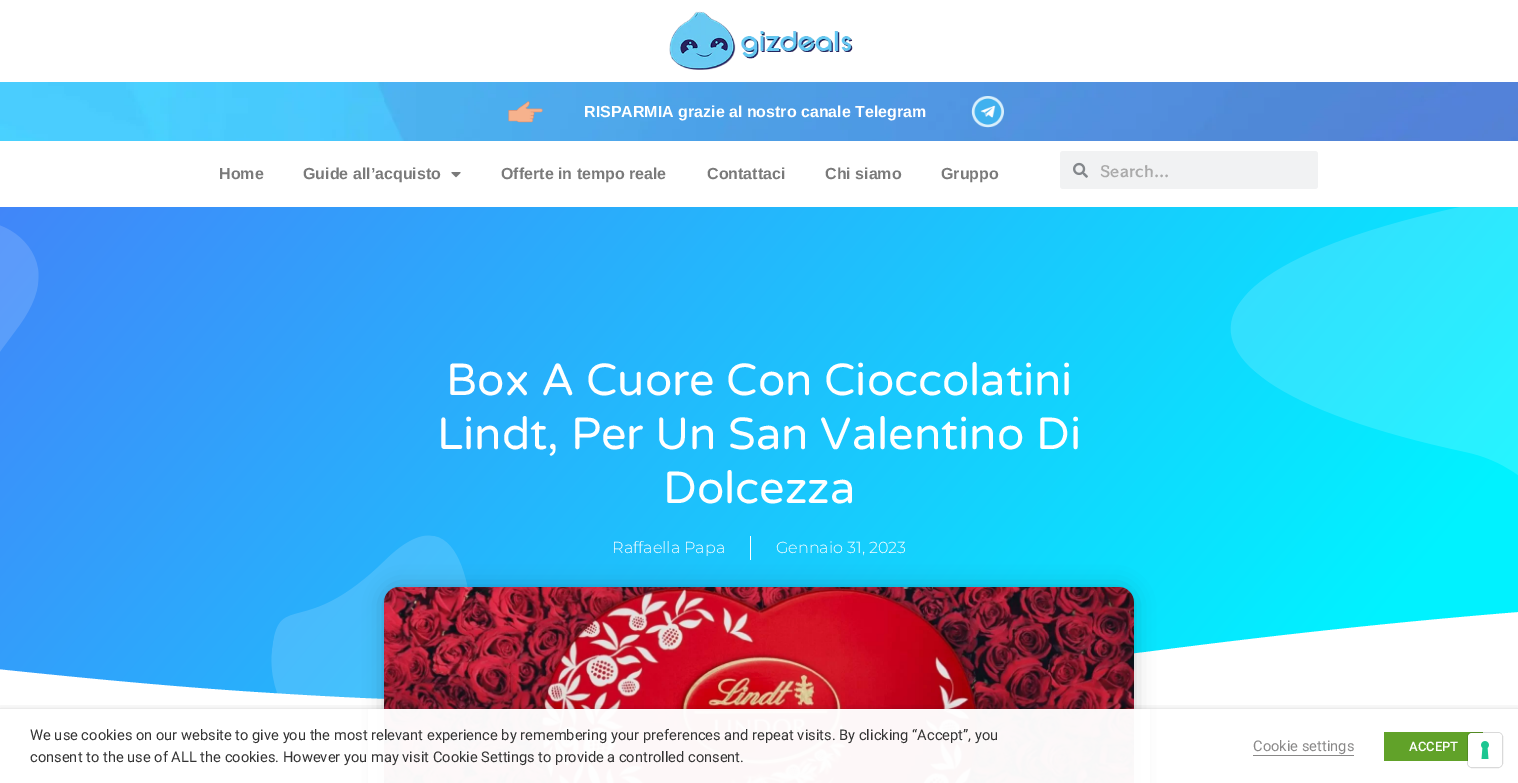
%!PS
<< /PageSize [1518 783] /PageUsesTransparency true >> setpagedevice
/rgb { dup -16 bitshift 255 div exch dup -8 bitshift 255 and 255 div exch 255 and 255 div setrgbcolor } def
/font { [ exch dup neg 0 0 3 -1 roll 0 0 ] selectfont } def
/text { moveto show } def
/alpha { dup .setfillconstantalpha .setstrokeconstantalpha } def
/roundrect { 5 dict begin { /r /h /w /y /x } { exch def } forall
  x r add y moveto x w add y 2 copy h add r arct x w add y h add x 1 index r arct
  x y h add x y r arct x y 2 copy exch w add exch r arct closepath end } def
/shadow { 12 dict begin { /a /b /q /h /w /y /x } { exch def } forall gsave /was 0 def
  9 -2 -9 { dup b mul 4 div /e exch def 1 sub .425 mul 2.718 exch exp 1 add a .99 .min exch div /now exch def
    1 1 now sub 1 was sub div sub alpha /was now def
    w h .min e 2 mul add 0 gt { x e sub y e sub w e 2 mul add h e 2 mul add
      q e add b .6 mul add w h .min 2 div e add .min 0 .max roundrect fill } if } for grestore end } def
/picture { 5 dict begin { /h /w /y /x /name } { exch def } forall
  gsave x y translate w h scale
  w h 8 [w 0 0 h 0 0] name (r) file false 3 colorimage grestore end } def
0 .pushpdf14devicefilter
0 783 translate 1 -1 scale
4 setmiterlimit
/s1 { /LiberationSans-Bold 16 font 16#FFFFFF rgb } def
/s2 { /LiberationSans-Bold 16 font 16#7A7A7A rgb } def
/s3 { /RocknRollOne-Regular 15 font 16#AAAAAA rgb } def
/s4 { /VarelaRound-Regular 45 font 16#FFFFFF rgb } def
/s5 { /Montserrat-Light 16 font 16#FFFFFF rgb } def
/s6 { /Roboto-Regular 14.67 font 16#333333 rgb } def
/s7 { /Roboto-Regular 14.67 font 16#898888 rgb } def
/s8 { /Roboto-Medium 13 font 16#FFFFFF rgb } def
16#FFFFFF rgb
0 0 1518 783 rectfill
(pic1.raw) 669 11 184 59 picture
(pic2.raw) 0 82 1518 59 picture
(pic3.raw) 508 101 35 22 picture
s1
(RISPARMIA grazie al nostro canale Telegram) 584 117 text
(pic4.raw) 971 96 33 32 picture
s2
(Home) 219 179 text
(Guide all’acquisto) 303 179 text
(pic5.raw) 451 172 10 6 picture
(Offerte in tempo reale) 501 179 text
(Contattaci) 707 179 text
(Chi siamo) 825 179 text
(Gruppo) 941 179 text
16#F1F2F3 rgb
1060 151 258 38 3 roundrect fill
(pic6.raw) 1073 162 15 16 picture
s3
(Search...) 1100 177 text
gsave 0 207 moveto 1518 207 lineto 1518 699 lineto 0 699 lineto closepath clip newpath
<< /ShadingType 2 /ColorSpace /DeviceRGB /Coords [190 -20 1328 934] /Extend [true true] /Function << /FunctionType 3 /Domain [0 1] /Functions [<< /FunctionType 2 /Domain [0 1] /C0 [0.255 0.525 0.976] /C1 [0 0.949 1] /N 1 >> << /FunctionType 2 /Domain [0 1] /C0 [0 0.949 1] /C1 [0 0.949 1] /N 1 >>] /Bounds [0.89] /Encode [0 1 0 1] >> >> shfill grestore
(pic7.raw) 0 207 1518 492 picture
s4
(Box A Cuore Con Cioccolatini) 446 395 text
(Lindt, Per Un San Valentino Di) 437 449 text
(Dolcezza) 663 503 text
s5
(Raffaella Papa) 612 553 text
750 536 1 24 rectfill
(Gennaio 31, 2023) 776 553 text
gsave
0 588 1518 120 rectclip
451 701 moveto 540 704 654 701 749 695 curveto 842 689 1029 666 1146 652 curveto 1445 613 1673 598 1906 592 curveto 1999 590 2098 588 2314 595 curveto 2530 602 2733 626 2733 626 curveto 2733 709 lineto -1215 709 lineto -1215 672 lineto -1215 672 -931 633 -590 636 curveto -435 637 -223 644 -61 663 curveto 23 672 145 685 254 692 curveto 361 699 410 700 451 701 curveto closepath fill
grestore
16#000000 rgb
384 587 750 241 15 10 0.2 shadow
(pic8.raw) 384 587 750 196 picture
gsave
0 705 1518 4 rectclip
0 714 1518 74 0 5 0.5 shadow
grestore
0.97 alpha
16#FFFFFF rgb
368 709 782 74 rectfill
1 alpha
s6
(We use cookies on our website to give you the most relevant experience by remembering your preferences and repeat visits. By clicking “Accept”, you) 30 740 text
(consent to the use of ALL the cookies. However you may visit Cookie Settings to provide a controlled consent.) 30 762 text
s7
(Cookie settings) 1253 751 text
1253 755 101 1 rectfill
16#61A229 rgb
1384 732 99 29 rectfill
s8
(ACCEPT) 1409 751 text
0.15 alpha
16#000000 rgb
1467.5 732.5 35 35 4.5 roundrect stroke
1 alpha
16#FFFFFF rgb
1468 733 34 34 4 roundrect fill
(pic9.raw) 1481 741 8 18 picture
.poppdf14devicefilter showpage
